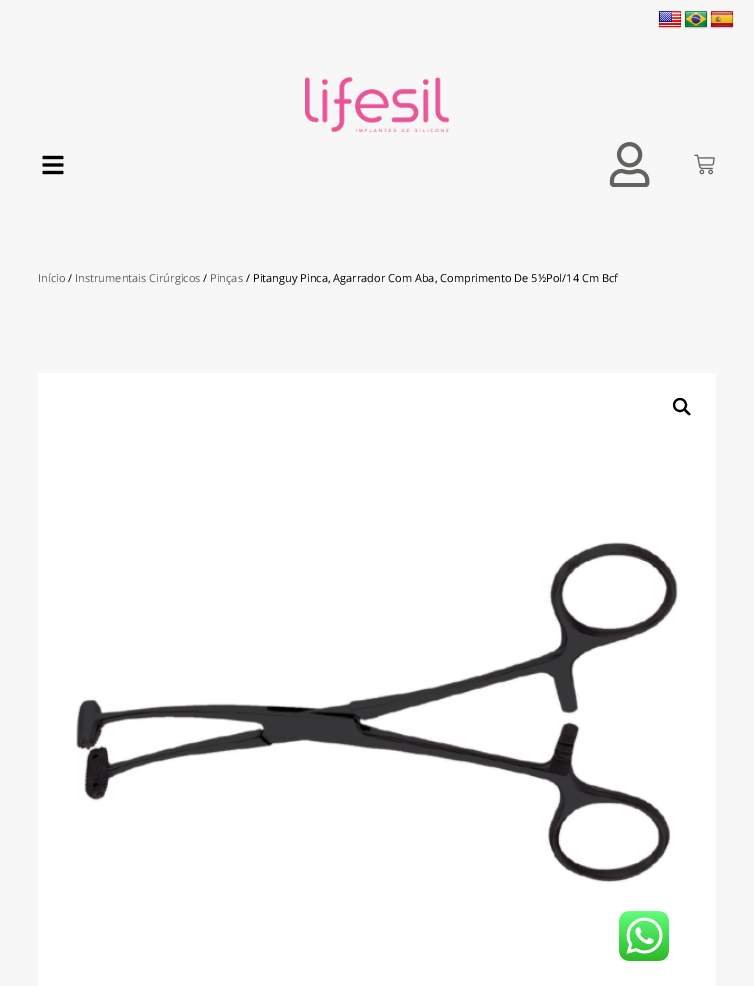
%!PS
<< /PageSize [754 986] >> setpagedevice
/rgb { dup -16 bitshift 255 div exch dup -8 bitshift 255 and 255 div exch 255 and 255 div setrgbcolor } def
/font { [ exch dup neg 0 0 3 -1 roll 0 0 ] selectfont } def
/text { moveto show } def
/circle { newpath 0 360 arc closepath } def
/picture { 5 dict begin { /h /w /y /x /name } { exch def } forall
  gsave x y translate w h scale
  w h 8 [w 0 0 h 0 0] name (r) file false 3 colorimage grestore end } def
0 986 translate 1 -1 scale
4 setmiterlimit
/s1 { /OpenSans-Regular 11 font 16#62625F rgb } def
/s2 { /OpenSans-Regular 11 font 16#000000 rgb } def
16#F7F7F7 rgb
0 0 754 986 rectfill
(pic1.raw) 658 11 24 18 picture
(pic2.raw) 684 11 24 18 picture
(pic3.raw) 710 11 24 18 picture
(pic4.raw) 305 77 144 55 picture
(pic5.raw) 42 155 22 20 picture
(pic6.raw) 609 142 41 45 picture
(pic7.raw) 694 154 21 21 picture
s1
(Início) 38 282 text
s2
(/) 68 282 text
s1
(Instrumentais Cirúrgicos) 75 282 text
s2
(/) 203 282 text
s1
(Pinças) 210 282 text
s2
(/ Pitanguy Pinca, Agarrador Com Aba, Comprimento De 5½Pol/14 Cm Bcf) 246 282 text
(pic8.raw) 38 373 678 613 picture
2 setlinewidth
680 405 6 circle stroke
684.5 409.5 moveto 685.5 408 687.5 411 688 411.5 curveto 688.5 412 691.5 414 690 415 curveto 689 416 687 413.5 686.5 413 curveto 686 412.5 683.5 410.5 684.5 409.5 curveto closepath fill
(pic9.raw) 619 911 50 50 picture
showpage
